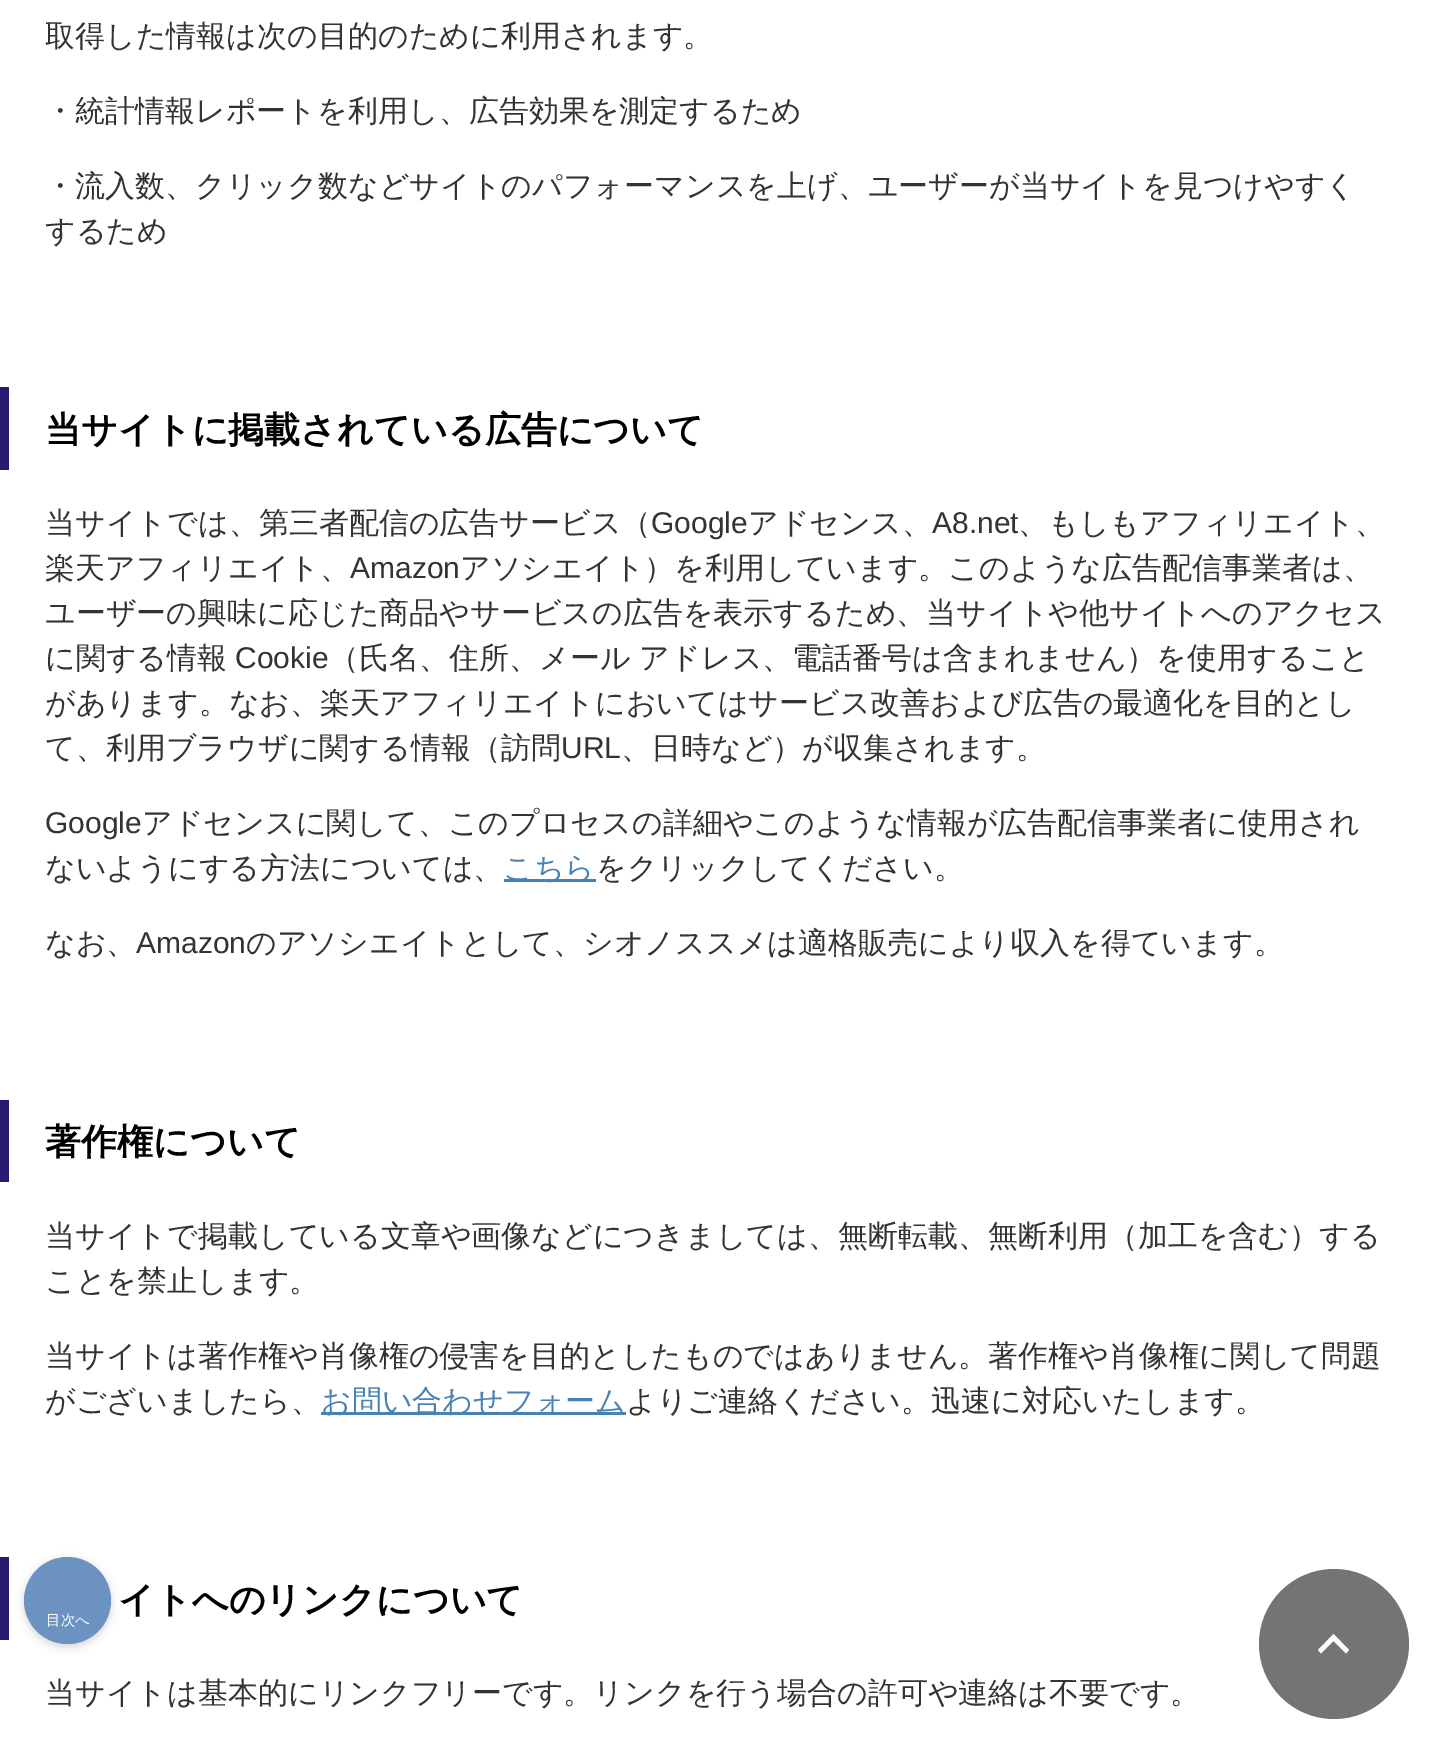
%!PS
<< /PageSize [1430 1749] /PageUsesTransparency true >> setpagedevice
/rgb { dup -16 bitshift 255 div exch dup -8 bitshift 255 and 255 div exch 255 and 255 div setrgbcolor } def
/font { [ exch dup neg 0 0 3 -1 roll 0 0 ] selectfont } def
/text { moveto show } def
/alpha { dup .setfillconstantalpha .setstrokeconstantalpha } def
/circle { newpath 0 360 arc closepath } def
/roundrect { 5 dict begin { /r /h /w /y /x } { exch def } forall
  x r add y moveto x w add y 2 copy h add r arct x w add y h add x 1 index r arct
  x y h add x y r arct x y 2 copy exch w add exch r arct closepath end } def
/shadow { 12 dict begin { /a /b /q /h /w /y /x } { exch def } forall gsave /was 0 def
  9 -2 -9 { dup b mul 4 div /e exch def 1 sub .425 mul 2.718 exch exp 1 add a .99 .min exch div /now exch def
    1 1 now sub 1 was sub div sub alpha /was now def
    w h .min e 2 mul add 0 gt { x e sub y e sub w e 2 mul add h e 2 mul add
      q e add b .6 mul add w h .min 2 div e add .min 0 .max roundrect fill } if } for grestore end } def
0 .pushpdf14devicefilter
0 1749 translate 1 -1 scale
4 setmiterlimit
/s1 { /WenQuanYiZenHei-Medium 30 font 16#333333 rgb } def
/s2 { /WenQuanYiZenHei-Bold 36 font 16#000000 rgb } def
/s3 { /LiberationSans-Regular 30 font 16#333333 rgb } def
/s4 { /WenQuanYiZenHei-Medium 30 font 16#4682B4 rgb } def
/s5 { /WenQuanYiZenHei-Medium 14.5 font 16#FDFEFE rgb } def
16#FFFFFF rgb
0 0 1430 1749 rectfill
s1
(取得した情報は次の目的のために利用されます。) 45 46 text
(・統計情報レポートを利用し、広告効果を測定するため) 45 121 text
(・流入数、クリック数などサイトのパフォーマンスを上げ、ユーザーが当サイトを見つけやすく) 45 196 text
(するため) 45 241 text
16#291A70 rgb
0 387 9 83 rectfill
s2
(当サイトに掲載されている広告について) 45 442 text
s1
(当サイトでは、第三者配信の広告サービス（) 45 533 text
s3
(Google) 651 533 text
s1
(アドセンス、) 748 533 text
s3
(A8.net) 932 533 text
s1
(、もしもアフィリエイト、) 1018 533 text
(楽天アフィリエイト、) 45 578 text
s3
(Amazon) 350 578 text
s1
(アソシエイト）を利用しています。このような広告配信事業者は、) 460 578 text
(ユーザーの興味に応じた商品やサービスの広告を表示するため、当サイトや他サイトへのアクセス) 45 623 text
(に関する情報) 45 668 text
s3
(Cookie) 235 668 text
s1
(（氏名、住所、メール アドレス、電話番号は含まれません）を使用すること) 329 668 text
(があります。なお、楽天アフィリエイトにおいてはサービス改善および広告の最適化を目的とし) 45 713 text
(て、利用ブラウザに関する情報（訪問) 45 758 text
s3
(URL) 561 758 text
s1
(、日時など）が収集されます。) 621 758 text
s3
(Google) 45 833 text
s1
(アドセンスに関して、このプロセスの詳細やこのような情報が広告配信事業者に使用され) 142 833 text
(ないようにする方法については、) 45 878 text
16#4682B4 rgb
504 879 92 3 rectfill
(こちら) 503 878 text
s1
(をクリックしてください。) 596 878 text
(なお、) 45 953 text
s3
(Amazon) 136 953 text
s1
(のアソシエイトとして、シオノススメは適格販売により収入を得ています。) 246 953 text
16#291A70 rgb
0 1100 9 82 rectfill
s2
(著作権について) 45 1154 text
s1
(当サイトで掲載している文章や画像などにつきましては、無断転載、無断利用（加工を含む）する) 45 1246 text
(ことを禁止します。) 45 1291 text
(当サイトは著作権や肖像権の侵害を目的としたものではありません。著作権や肖像権に関して問題) 45 1366 text
(がございましたら、) 45 1411 text
16#4682B4 rgb
321 1412 305 3 rectfill
(お問い合わせフォーム) 321 1411 text
s1
(よりご連絡ください。迅速に対応いたします。) 626 1411 text
16#291A70 rgb
0 1557 9 83 rectfill
s2
(イトへのリンクについて) 118 1612 text
s1
(当サイトは基本的にリンクフリーです。リンクを行う場合の許可や連絡は不要です。) 45 1703 text
gsave
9 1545 moveto 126 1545 lineto 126 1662 lineto 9 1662 lineto closepath 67.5 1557 moveto 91.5 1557 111 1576.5 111 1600.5 curveto 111 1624.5 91.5 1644 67.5 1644 curveto 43.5 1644 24 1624.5 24 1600.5 curveto 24 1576.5 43.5 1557 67.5 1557 curveto closepath eoclip newpath
16#000000 rgb
24 1560 87 87 43.5 4.5 0.16 shadow
grestore
0.99 alpha
16#6A91C1 rgb
67.5 1600.5 43.5 circle fill
1 alpha
s5
(目次へ) 46 1625 text
16#747474 rgb
1334 1644 75 circle fill
16#FFFFFF rgb
1333.5 1641 moveto 1321 1653.5 lineto 1318 1650 lineto 1333.5 1634 lineto 1349 1650 lineto 1346 1653.5 lineto closepath fill
.poppdf14devicefilter showpage
